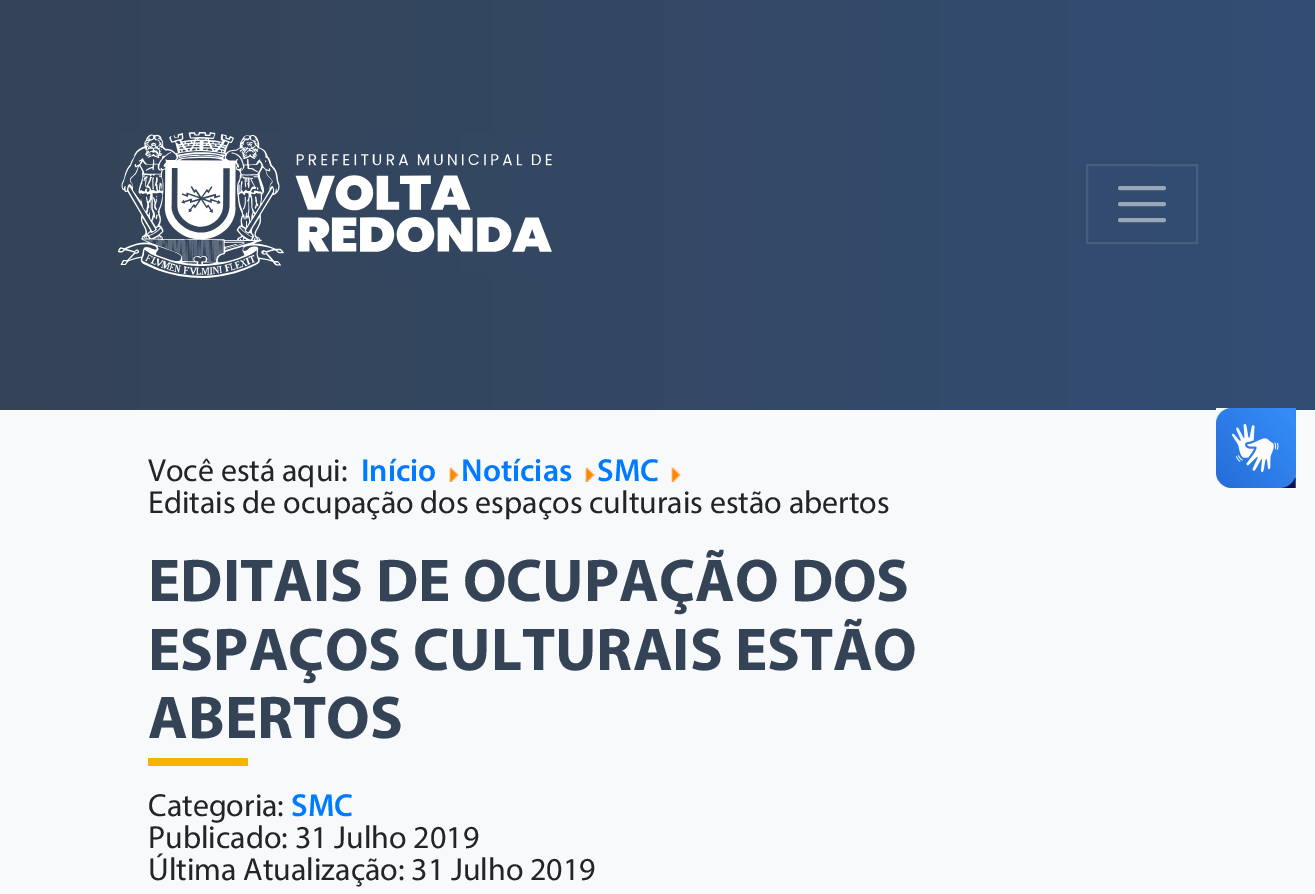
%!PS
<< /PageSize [1315 894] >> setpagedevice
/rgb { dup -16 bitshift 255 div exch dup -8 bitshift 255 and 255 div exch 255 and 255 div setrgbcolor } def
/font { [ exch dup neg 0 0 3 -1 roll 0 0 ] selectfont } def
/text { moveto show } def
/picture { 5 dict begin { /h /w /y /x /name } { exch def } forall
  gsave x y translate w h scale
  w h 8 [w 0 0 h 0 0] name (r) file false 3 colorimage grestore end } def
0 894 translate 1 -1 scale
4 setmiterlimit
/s1 { /Myriad-Regular 32 font 16#212529 rgb } def
/s2 { /Myriad-SemiBold 32 font 16#007BFF rgb } def
/s3 { /Myriad-Bold 60.75 font 16#344356 rgb } def
16#F8F9FA rgb
0 0 1315 894 rectfill
gsave 0 0 moveto 1315 0 lineto 1315 410 lineto 0 410 lineto closepath clip newpath
<< /ShadingType 2 /ColorSpace /DeviceRGB /Coords [0 205 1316 205] /Extend [true true] /Function << /FunctionType 2 /Domain [0 1] /C0 [0.204 0.263 0.337] /C1 [0.196 0.302 0.455] /N 1 >> >> shfill grestore
(pic1.raw) 118 132 434 146 picture
16#475E7E rgb
2 setlinewidth
1087 165 110 78 rectstroke
16#99A5B8 rgb
4 setlinewidth
1 setlinecap
1120 188 moveto 1164 188 lineto 1120 204 moveto 1164 204 lineto 1120 220 moveto 1164 220 lineto stroke
(pic2.raw) 1216 408 80 80 picture
(pic3.raw) 1216 408 80 80 picture
s1
(Você está aqui:) 148 481 text
s2
(Início) 361 481 text
(pic4.raw) 449 467 10 15 picture
(Notícias) 461 481 text
(pic4.raw) 585 467 10 15 picture
(SMC) 597 481 text
(pic4.raw) 671 467 10 15 picture
s1
(Editais de ocupação dos espaços culturais estão abertos) 148 513 text
s3
(EDITAIS DE OCUPAÇÃO DOS) 148 601 text
(ESPAÇOS CULTURAIS ESTÃO) 148 670 text
(ABERTOS) 148 738 text
16#F4B400 rgb
148 758 100 8 rectfill
s1
(Categoria:) 148 816 text
s2
(SMC) 291 816 text
s1
(Publicado: 31 Julho 2019) 148 848 text
(Última Atualização: 31 Julho 2019) 148 880 text
showpage
